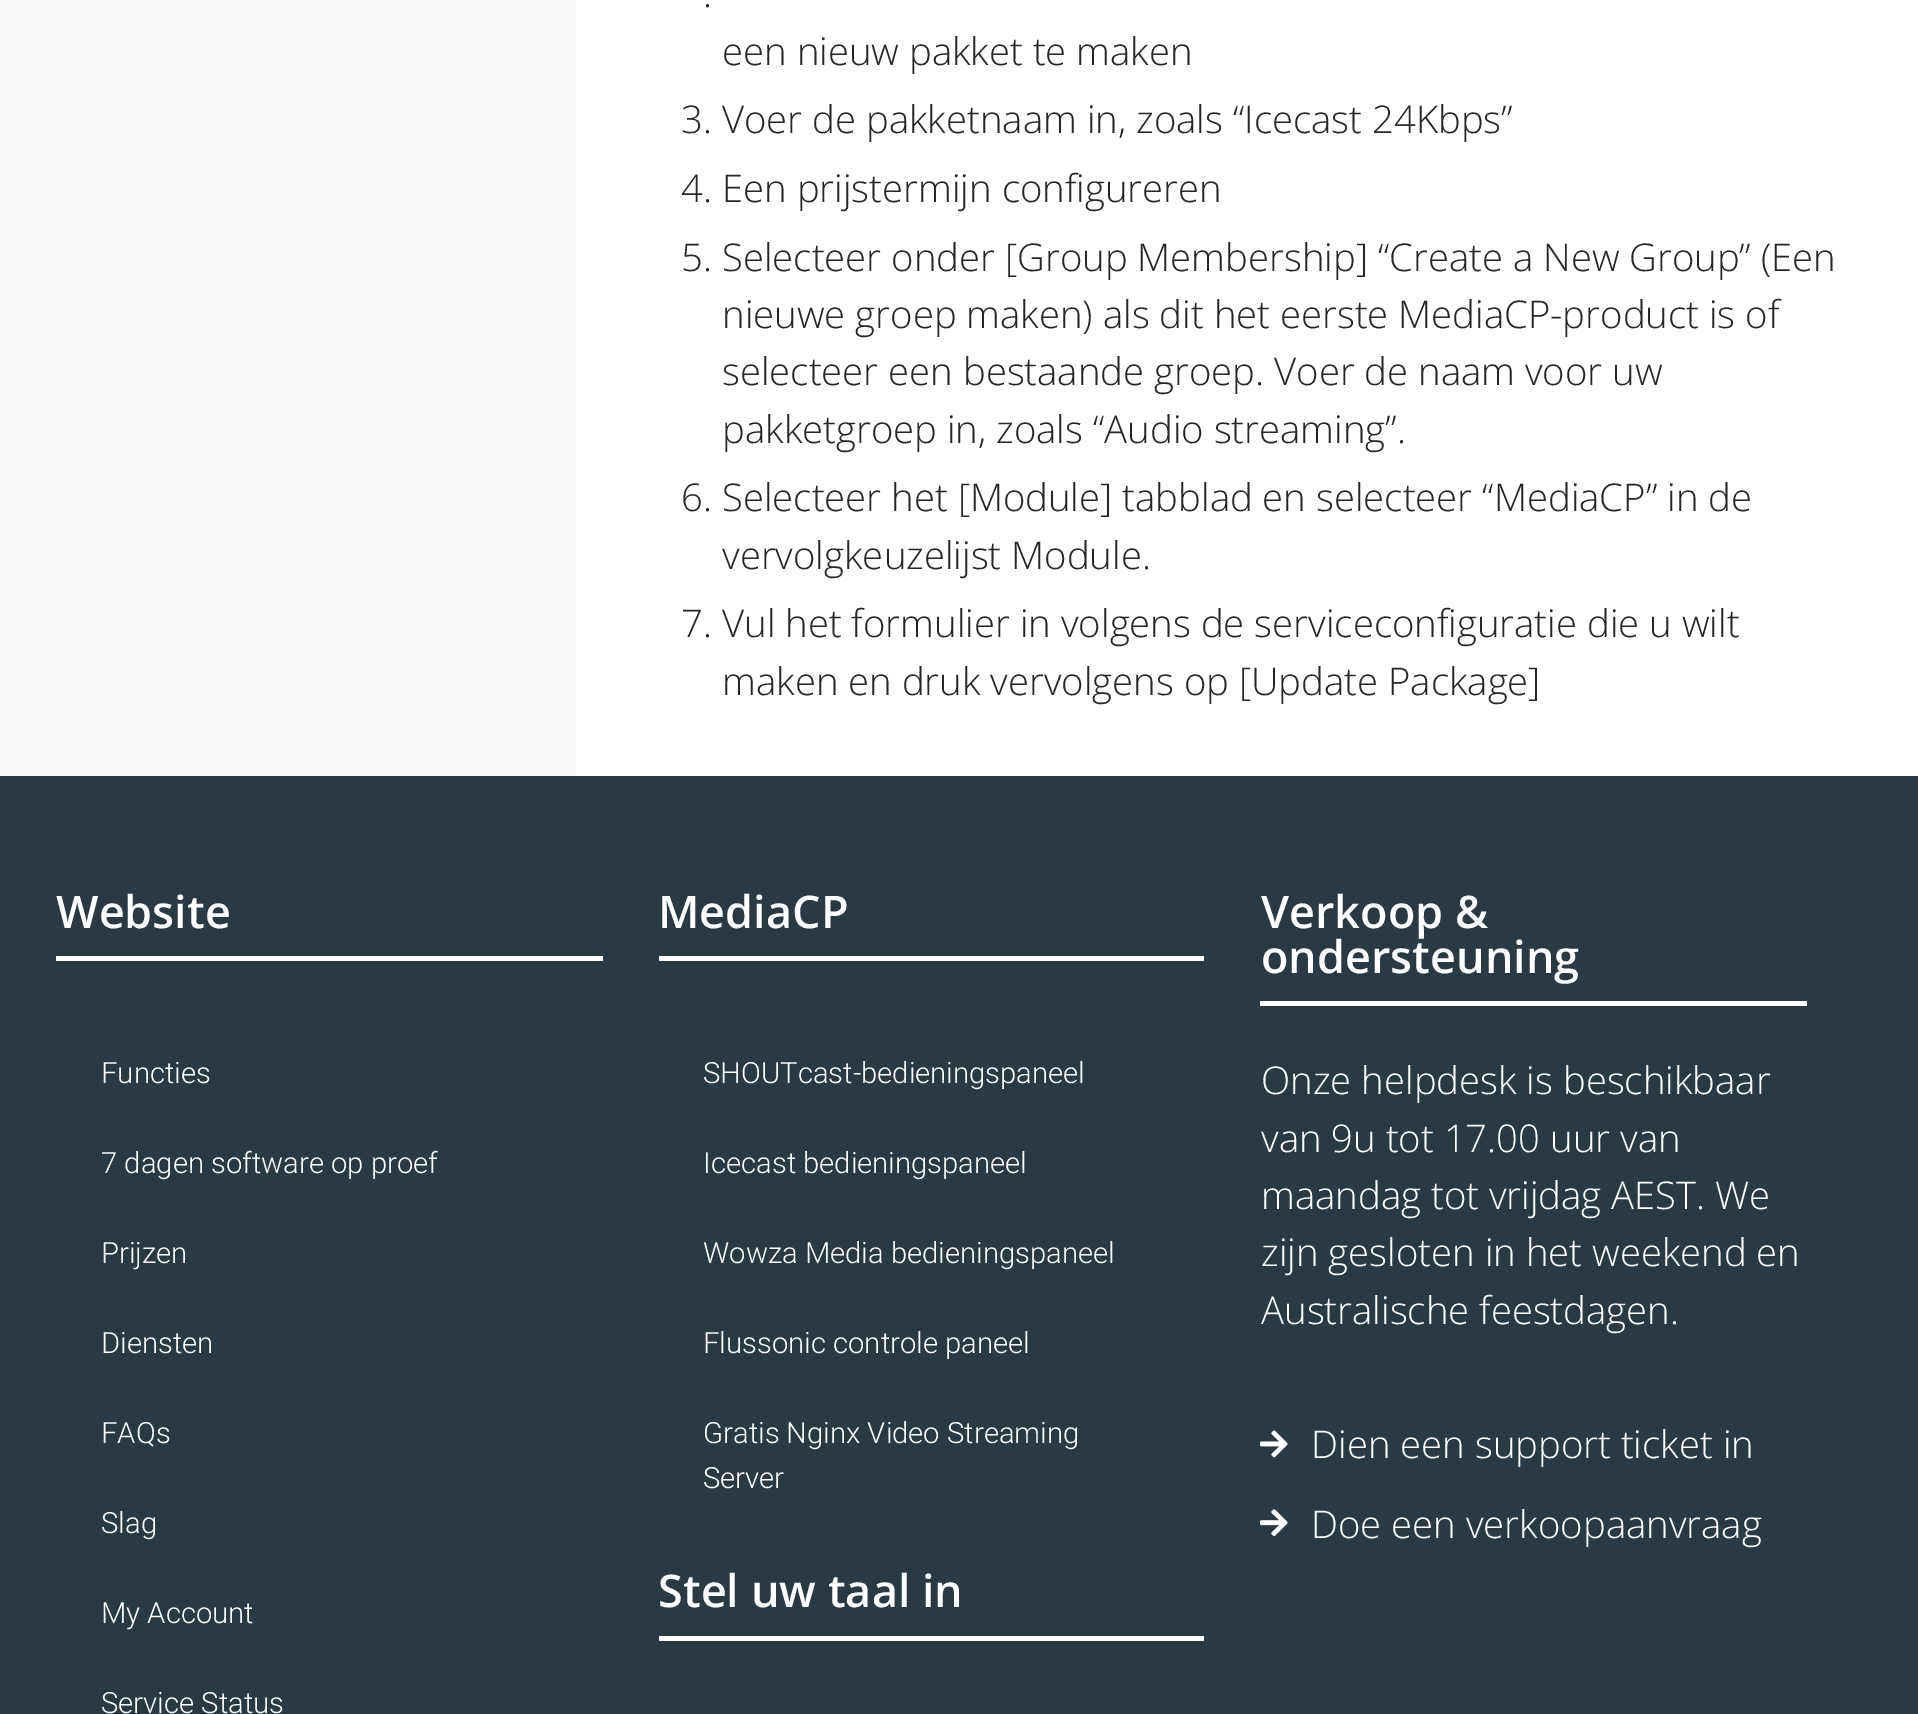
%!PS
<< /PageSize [1918 1714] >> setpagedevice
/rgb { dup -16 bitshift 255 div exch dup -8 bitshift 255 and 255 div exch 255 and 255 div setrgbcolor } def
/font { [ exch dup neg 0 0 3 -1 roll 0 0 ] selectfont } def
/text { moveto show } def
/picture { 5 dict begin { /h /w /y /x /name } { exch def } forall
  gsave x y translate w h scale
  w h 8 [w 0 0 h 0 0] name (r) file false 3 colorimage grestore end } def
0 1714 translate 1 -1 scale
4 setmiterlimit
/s1 { /OpenSans-Light 38.25 font 16#262626 rgb } def
/s2 { /OpenSans-SemiBold 45 font 16#FFFFFF rgb } def
/s3 { /Roboto-Light 29.25 font 16#FFFFFF rgb } def
/s4 { /OpenSans-Light 38.25 font 16#FFFFFF rgb } def
16#FAFAFA rgb
0 0 1918 1714 rectfill
16#FFFFFF rgb
576 0 1342 776 rectfill
s1
(.) 703 7 text
(een nieuw pakket te maken) 722 65 text
(3. Voer de pakketnaam in, zoals “Icecast 24Kbps”) 681 133 text
(4. Een prijstermijn configureren) 681 202 text
(5. Selecteer onder [Group Membership] “Create a New Group” \(Een) 681 271 text
(nieuwe groep maken\) als dit het eerste MediaCP-product is of) 722 328 text
(selecteer een bestaande groep. Voer de naam voor uw) 722 385 text
(pakketgroep in, zoals “Audio streaming”.) 722 443 text
(6. Selecteer het [Module] tabblad en selecteer “MediaCP” in de) 681 511 text
(vervolgkeuzelijst Module.) 722 569 text
(7. Vul het formulier in volgens de serviceconfiguratie die u wilt) 681 637 text
(maken en druk vervolgens op [Update Package]) 722 695 text
16#2B3A42 rgb
0 776 1918 938 rectfill
16#FFFFFF rgb
56 956 547 5 rectfill
s2
(Website) 56 928 text
s3
(Functies) 101 1083 text
(7 dagen software op proef) 101 1173 text
(Prijzen) 101 1263 text
(Diensten) 101 1353 text
(FAQs) 101 1443 text
(Slag) 101 1533 text
(My Account) 101 1623 text
(Service Status) 101 1713 text
659 956 545 5 rectfill
s2
(MediaCP) 658 928 text
s3
(SHOUTcast-bedieningspaneel) 703 1083 text
(Icecast bedieningspaneel) 703 1173 text
(Wowza Media bedieningspaneel) 703 1263 text
(Flussonic controle paneel) 703 1353 text
(Gratis Nginx Video Streaming) 703 1443 text
(Server) 703 1488 text
659 1636 545 5 rectfill
s2
(Stel uw taal in) 658 1607 text
1260 1001 547 5 rectfill
(Verkoop &) 1261 928 text
(ondersteuning) 1261 973 text
s4
(Onze helpdesk is beschikbaar) 1261 1094 text
(van 9u tot 17.00 uur van) 1261 1152 text
(maandag tot vrijdag AEST. We) 1261 1209 text
(zijn gesloten in het weekend en) 1261 1266 text
(Australische feestdagen.) 1261 1324 text
(pic1.raw) 1260 1430 28 28 picture
(Dien een support ticket in) 1311 1458 text
(pic2.raw) 1260 1509 28 28 picture
(Doe een verkoopaanvraag) 1311 1538 text
showpage
